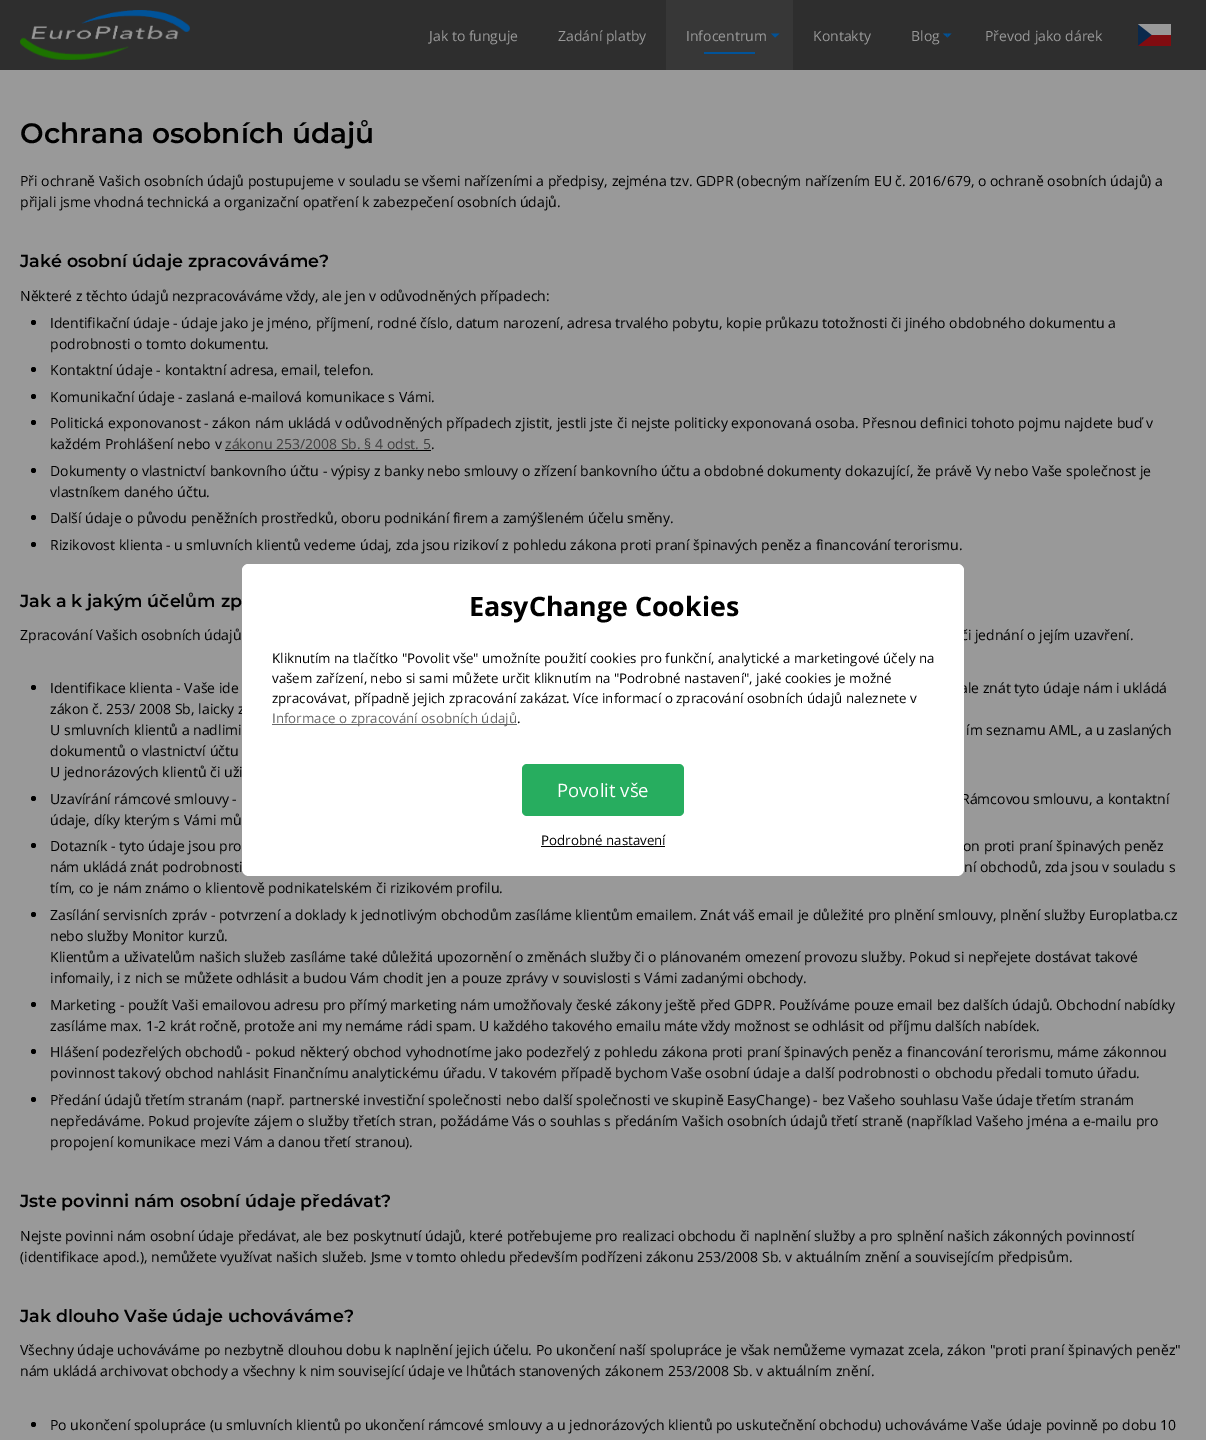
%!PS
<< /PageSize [1206 1440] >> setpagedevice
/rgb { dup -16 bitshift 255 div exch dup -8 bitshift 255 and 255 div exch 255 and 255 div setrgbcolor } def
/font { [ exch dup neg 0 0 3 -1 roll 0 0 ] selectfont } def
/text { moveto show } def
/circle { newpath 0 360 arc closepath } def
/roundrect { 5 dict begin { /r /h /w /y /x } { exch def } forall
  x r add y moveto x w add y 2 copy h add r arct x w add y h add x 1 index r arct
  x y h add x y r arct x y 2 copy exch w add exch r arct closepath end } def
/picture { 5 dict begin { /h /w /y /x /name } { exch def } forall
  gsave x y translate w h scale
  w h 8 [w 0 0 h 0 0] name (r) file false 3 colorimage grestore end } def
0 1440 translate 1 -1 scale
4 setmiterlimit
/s1 { /OpenSans-Regular 14 font 16#999999 rgb } def
/s2 { /Montserrat-SemiBold 28 font 16#000000 rgb } def
/s3 { /OpenSans-Regular 14 font 16#000000 rgb } def
/s4 { /Montserrat-SemiBold 17.5 font 16#000000 rgb } def
/s5 { /OpenSans-Regular 14 font 16#3D3D3D rgb } def
/s6 { /OpenSans-Bold 26.75 font 16#000000 rgb } def
/s7 { /OpenSans-Regular 13.35 font 16#000000 rgb } def
/s8 { /OpenSans-Regular 13.35 font 16#666666 rgb } def
/s9 { /OpenSans-Regular 18.5 font 16#FFFFFF rgb } def
16#999999 rgb
0 0 1206 1440 rectfill
16#2E2E2E rgb
0 0 1206 70 rectfill
(pic1.raw) 20 10 170 50 picture
s1
(Jak to funguje) 429 41 text
(Zadání platby) 558 41 text
16#373737 rgb
666 0 127 70 rectfill
s1
(Infocentrum) 686 41 text
16#015399 rgb
779.5 33.5 moveto 775 37.5 lineto 775 33.5 lineto closepath 775 37.5 moveto 771 33.5 lineto 775 33.5 lineto closepath fill
704 52 51 2 rectfill
s1
(Kontakty) 813 41 text
(Blog) 911 41 text
16#015399 rgb
951.5 33.5 moveto 947.5 37.5 lineto 947.5 33.5 lineto closepath fill
947.5 37.5 moveto 943 33.5 lineto 947.5 33.5 lineto closepath fill
s1
(Převod jako dárek) 985 41 text
16#0A294C rgb
1138 24 14 22 rectfill
16#999999 rgb
1171 24 moveto 1171 35 lineto 1152 35 lineto 1138 24 lineto closepath fill
16#810C10 rgb
1171 35 moveto 1171 46 lineto 1138 46 lineto 1152 35 lineto closepath fill
s2
(Ochrana osobních údajů) 20 143 text
s3
(Při ochraně Vašich osobních údajů postupujeme v souladu se všemi nařízeními a předpisy, zejména tzv. GDPR \(obecným nařízením EU č. 2016/679, o ochraně osobních údajů\) a) 20 186 text
(přijali jsme vhodná technická a organizační opatření k zabezpečení osobních údajů.) 20 207 text
s4
(Jaké osobní údaje zpracováváme?) 20 267 text
s3
(Některé z těchto údajů nezpracováváme vždy, ale jen v odůvodněných případech:) 20 301 text
33.5 322.5 2.5 circle fill
(Identifikační údaje - údaje jako je jméno, příjmení, rodné číslo, datum narození, adresa trvalého pobytu, kopie průkazu totožnosti či jiného obdobného dokumentu a) 50 328 text
(podrobnosti o tomto dokumentu.) 50 349 text
33.5 369.5 2.5 circle fill
(Kontaktní údaje - kontaktní adresa, email, telefon.) 50 375 text
33.5 396.5 2.5 circle fill
(Komunikační údaje - zaslaná e-mailová komunikace s Vámi.) 50 402 text
33.5 422.5 2.5 circle fill
(Politická exponovanost - zákon nám ukládá v odůvodněných případech zjistit, jestli jste či nejste politicky exponovaná osoba. Přesnou definici tohoto pojmu najdete buď v) 50 428 text
(každém Prohlášení nebo v) 50 449 text
s5
(zákonu 253/2008 Sb. § 4 odst. 5) 225 449 text
16#000000 rgb
225 450 206 1 rectfill
(.) 431 449 text
33.5 470.5 2.5 circle fill
(Dokumenty o vlastnictví bankovního účtu - výpisy z banky nebo smlouvy o zřízení bankovního účtu a obdobné dokumenty dokazující, že právě Vy nebo Vaše společnost je) 50 476 text
(vlastníkem daného účtu.) 50 497 text
33.5 517.5 2.5 circle fill
(Další údaje o původu peněžních prostředků, oboru podnikání firem a zamýšleném účelu směny.) 50 523 text
33.5 544.5 2.5 circle fill
(Rizikovost klienta - u smluvních klientů vedeme údaj, zda jsou rizikoví z pohledu zákona proti praní špinavých peněz a financování terorismu.) 50 550 text
s4
(Jak a k jakým účelům zp) 20 607 text
s3
(či jednání o jejím uzavření.) 961 640 text
(ale znát tyto údaje nám i ukládá) 960 693 text
(zákon č. 253/ 2008 Sb, laicky z) 50 714 text
(Rámcovou smlouvu, a kontaktní) 961 804 text
(on proti praní špinavých peněz) 963 851 text
16#FFFFFF rgb
242 564 722 312 7 roundrect fill
249 564 moveto 957 564 lineto 961 564 964 567 964 571 curveto 964 649 lineto 242 649 lineto 242 571 lineto 242 567 245 564 249 564 curveto closepath fill
s6
(EasyChange Cookies) 469 616 text
s7
(Kliknutím na tlačítko "Povolit vše" umožníte použití cookies pro funkční, analytické a marketingové účely na) 272 663 text
(vašem zařízení, nebo si sami můžete určit kliknutím na "Podrobné nastavení", jaké cookies je možné) 272 683 text
(zpracovávat, případně jejich zpracování zakázat. Více informací o zpracování osobních údajů naleznete v) 272 703 text
16#666666 rgb
272 724 245 1 rectfill
(Informace o zpracování osobních údajů) 272 723 text
s7
(.) 517 723 text
16#27AD5F rgb
522 764 162 52 5 roundrect fill
s9
(Povolit vše) 557 797 text
s7
(Podrobné nastavení) 541 845 text
541 846 124 1 rectfill
s3
(Zpracování Vašich osobních údajů) 20 640 text
33.5 687.5 2.5 circle fill
(Identifikace klienta - Vaše ide) 50 693 text
(U smluvních klientů a nadlimi) 50 735 text
(ím seznamu AML, a u zaslaných) 966 735 text
(dokumentů o vlastnictví účtu) 50 756 text
(U jednorázových klientů či uži) 50 777 text
33.5 798.5 2.5 circle fill
(Uzavírání rámcové smlouvy -) 50 804 text
(údaje, díky kterým s Vámi mů) 50 825 text
33.5 845.5 2.5 circle fill
(Dotazník - tyto údaje jsou pro) 50 851 text
(nám ukládá znát podrobnosti) 50 872 text
(ní obchodů, zda jsou v souladu s) 964 872 text
(tím, co je nám známo o klientově podnikatelském či rizikovém profilu.) 50 893 text
33.5 914.5 2.5 circle fill
(Zasílání servisních zpráv - potvrzení a doklady k jednotlivým obchodům zasíláme klientům emailem. Znát váš email je důležité pro plnění smlouvy, plnění služby Europlatba.cz) 50 920 text
(nebo služby Monitor kurzů.) 50 941 text
(Klientům a uživatelům našich služeb zasíláme také důležitá upozornění o změnách služby či o plánovaném omezení provozu služby. Pokud si nepřejete dostávat takové) 50 962 text
(infomaily, i z nich se můžete odhlásit a budou Vám chodit jen a pouze zprávy v souvislosti s Vámi zadanými obchody.) 50 983 text
33.5 1004.5 2.5 circle fill
(Marketing - použít Vaši emailovou adresu pro přímý marketing nám umožňovaly české zákony ještě před GDPR. Používáme pouze email bez dalších údajů. Obchodní nabídky) 50 1010 text
(zasíláme max. 1-2 krát ročně, protože ani my nemáme rádi spam. U každého takového emailu máte vždy možnost se odhlásit od příjmu dalších nabídek.) 50 1031 text
33.5 1051.5 2.5 circle fill
(Hlášení podezřelých obchodů - pokud některý obchod vyhodnotíme jako podezřelý z pohledu zákona proti praní špinavých peněz a financování terorismu, máme zákonnou) 50 1057 text
(povinnost takový obchod nahlásit Finančnímu analytickému úřadu. V takovém případě bychom Vaše osobní údaje a další podrobnosti o obchodu předali tomuto úřadu.) 50 1078 text
33.5 1099.5 2.5 circle fill
(Předání údajů třetím stranám \(např. partnerské investiční společnosti nebo další společnosti ve skupině EasyChange\) - bez Vašeho souhlasu Vaše údaje třetím stranám) 50 1105 text
(nepředáváme. Pokud projevíte zájem o služby třetích stran, požádáme Vás o souhlas s předáním Vašich osobních údajů třetí straně \(například Vašeho jména a e-mailu pro) 50 1126 text
(propojení komunikace mezi Vám a danou třetí stranou\).) 50 1147 text
s4
(Jste povinni nám osobní údaje předávat?) 20 1207 text
s3
(Nejste povinni nám osobní údaje předávat, ale bez poskytnutí údajů, které potřebujeme pro realizaci obchodu či naplnění služby a pro splnění našich zákonných povinností) 20 1241 text
(\(identifikace apod.\), nemůžete využívat našich služeb. Jsme v tomto ohledu především podřízeni zákonu 253/2008 Sb. v aktuálním znění a souvisejícím předpisům.) 20 1262 text
s4
(Jak dlouho Vaše údaje uchováváme?) 20 1322 text
s3
(Všechny údaje uchováváme po nezbytně dlouhou dobu k naplnění jejich účelu. Po ukončení naší spolupráce je však nemůžeme vymazat zcela, zákon "proti praní špinavých peněz") 20 1355 text
(nám ukládá archivovat obchody a všechny k nim související údaje ve lhůtách stanovených zákonem 253/2008 Sb. v aktuálním znění.) 20 1376 text
33.5 1424.5 2.5 circle fill
(Po ukončení spolupráce \(u smluvních klientů po ukončení rámcové smlouvy a u jednorázových klientů po uskutečnění obchodu\) uchováváme Vaše údaje povinně po dobu 10) 50 1430 text
showpage
